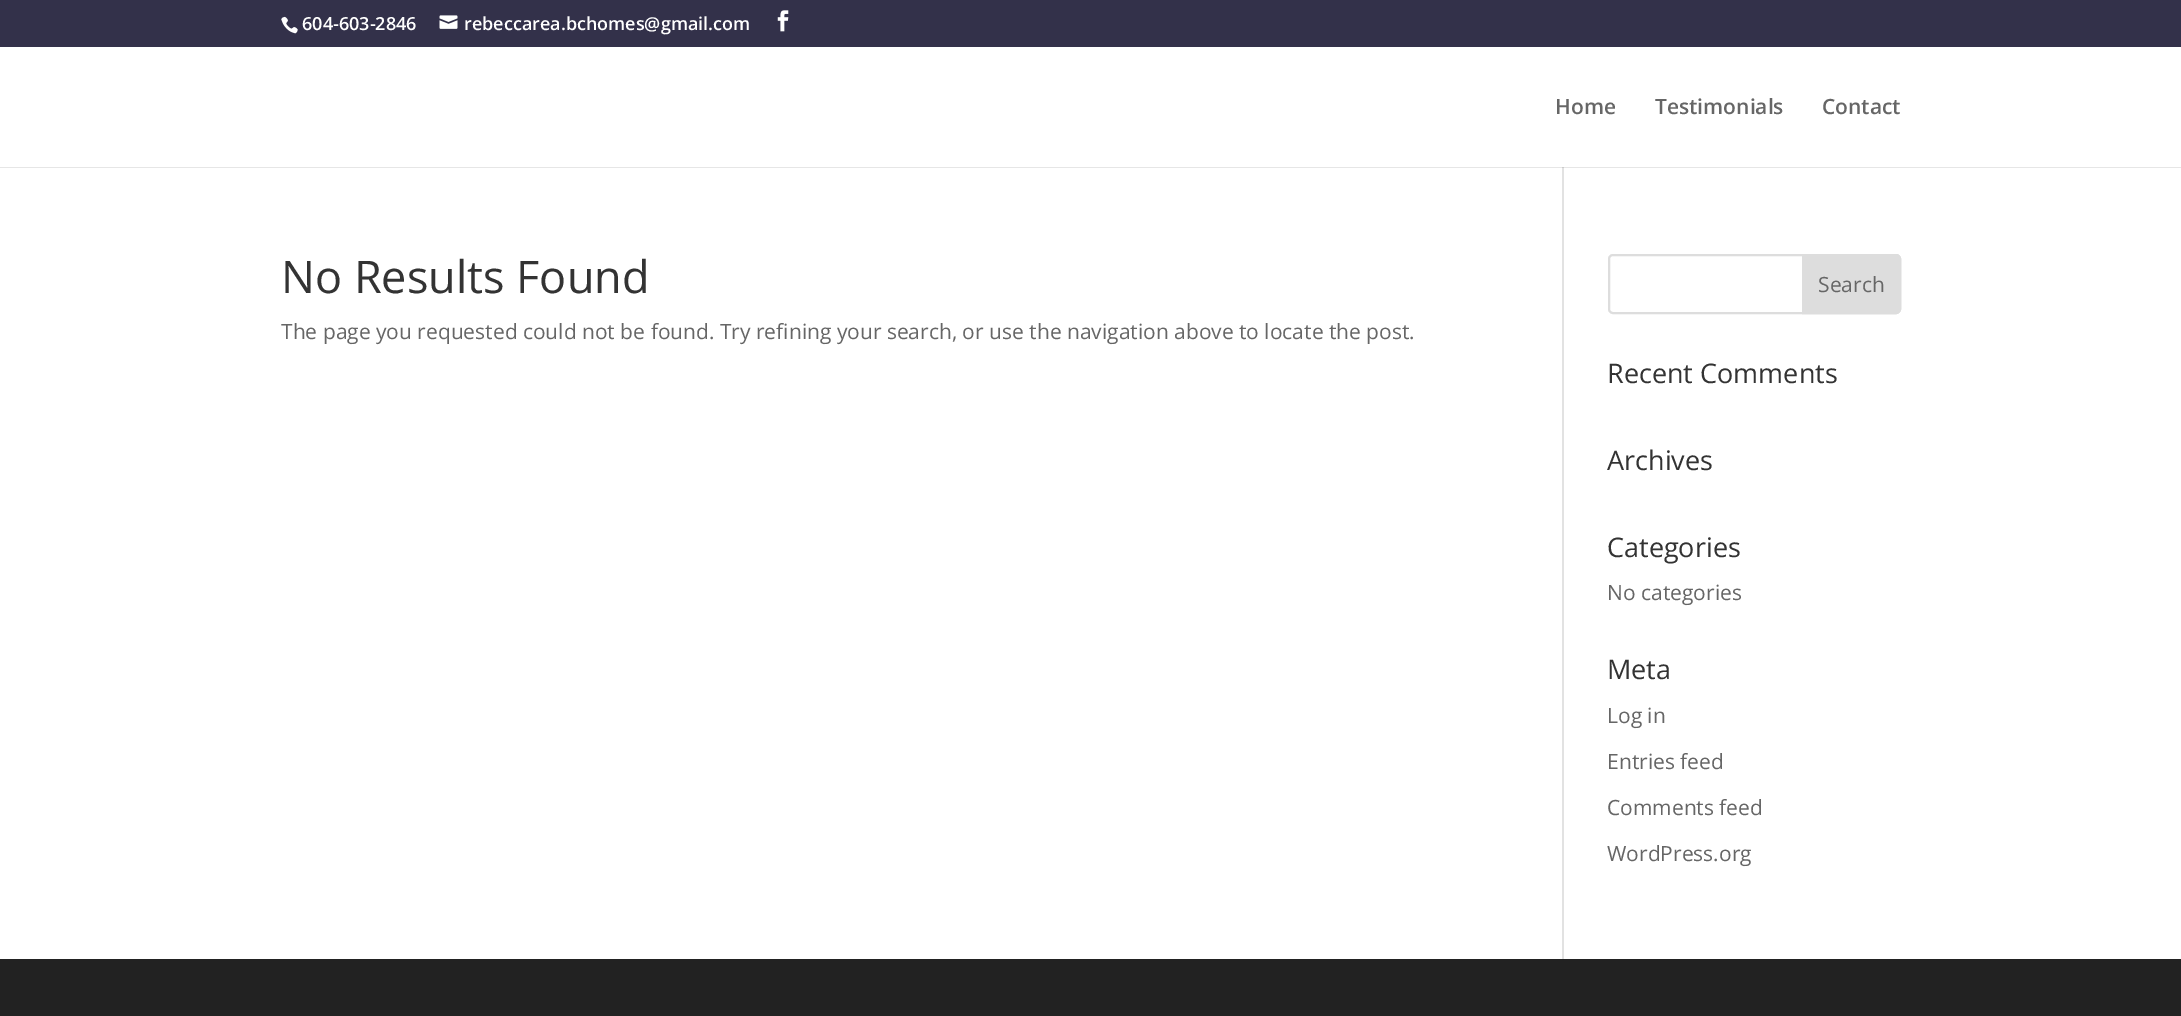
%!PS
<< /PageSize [2181 1016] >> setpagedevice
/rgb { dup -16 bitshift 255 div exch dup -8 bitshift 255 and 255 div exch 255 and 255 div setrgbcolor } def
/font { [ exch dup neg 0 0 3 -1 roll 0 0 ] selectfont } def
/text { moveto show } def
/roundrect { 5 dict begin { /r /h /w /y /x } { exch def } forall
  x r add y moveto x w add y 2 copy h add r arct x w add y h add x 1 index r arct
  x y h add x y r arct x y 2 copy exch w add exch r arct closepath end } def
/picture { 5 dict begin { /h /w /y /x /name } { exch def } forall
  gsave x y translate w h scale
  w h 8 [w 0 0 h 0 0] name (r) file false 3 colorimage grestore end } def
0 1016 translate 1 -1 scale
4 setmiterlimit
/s1 { /OpenSans-SemiBold 18 font 16#FFFFFF rgb } def
/s2 { /OpenSans-SemiBold 21 font 16#666666 rgb } def
/s3 { /OpenSans-Regular 45 font 16#333333 rgb } def
/s4 { /OpenSans-Regular 21 font 16#666666 rgb } def
/s5 { /OpenSans-Regular 27 font 16#333333 rgb } def
16#FFFFFF rgb
0 0 2181 1016 rectfill
16#E6E6E6 rgb
0 167 2181 1 rectfill
16#33314A rgb
0 0 2181 47 rectfill
(pic1.raw) 281 16 17 18 picture
s1
(604-603-2846) 302 30 text
(pic2.raw) 439 15 19 14 picture
(rebeccarea.bchomes@gmail.com) 464 30 text
(pic3.raw) 777 10 12 22 picture
s2
(Home) 1555 114 text
(Testimonials) 1655 114 text
(Contact) 1822 114 text
16#E2E2E2 rgb
1562 167 2 792 rectfill
16#CBCBCB rgb
1562 167 2 1 rectfill
s3
(No Results Found) 281 293 text
s4
(The page you requested could not be found. Try refining your search, or use the navigation above to locate the post.) 281 339 text
16#DDDDDD rgb
2 setlinewidth
1609 255 291 58 4 roundrect stroke
1803 255 moveto 1896 255 lineto 1898 255 1900 257 1900 259 curveto 1900 309 lineto 1900 311 1898 313 1896 313 curveto 1803 313 lineto closepath gsave fill grestore
stroke
s4
(Search) 1818 292 text
s5
(Recent Comments) 1607 383 text
(Archives) 1607 470 text
(Categories) 1607 557 text
s4
(No categories) 1607 600 text
s5
(Meta) 1607 679 text
s4
(Log in) 1607 723 text
(Entries feed) 1607 769 text
(Comments feed) 1607 815 text
(WordPress.org) 1607 861 text
16#222222 rgb
0 959 2181 57 rectfill
showpage
